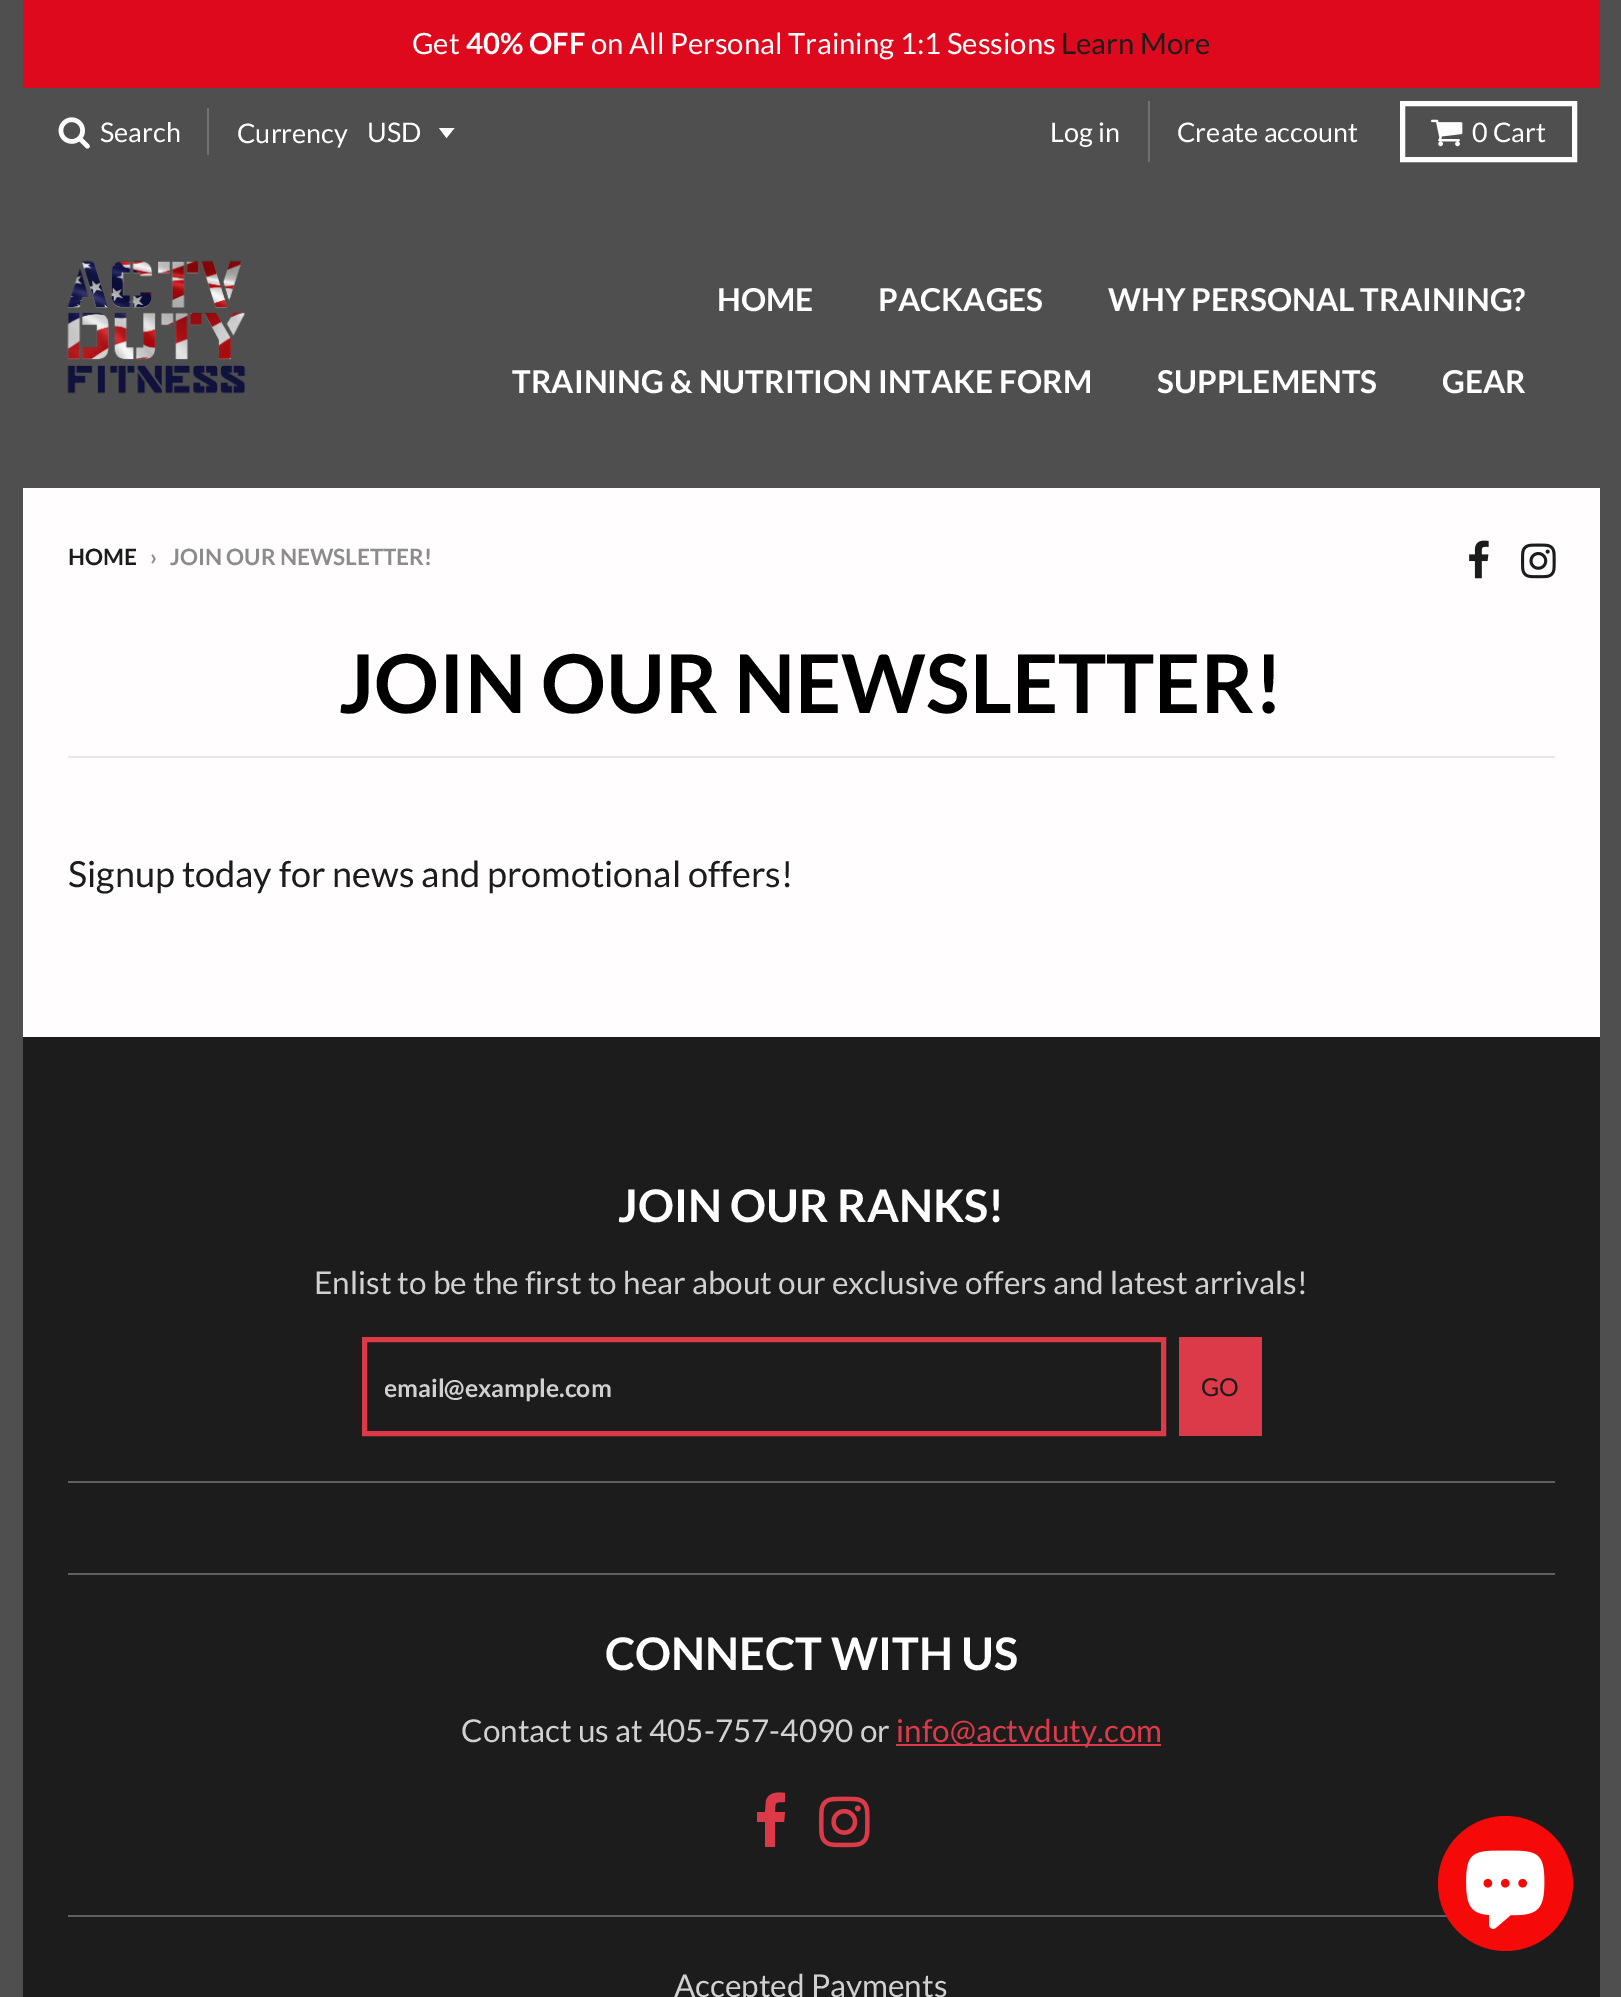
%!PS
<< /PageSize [1621 1997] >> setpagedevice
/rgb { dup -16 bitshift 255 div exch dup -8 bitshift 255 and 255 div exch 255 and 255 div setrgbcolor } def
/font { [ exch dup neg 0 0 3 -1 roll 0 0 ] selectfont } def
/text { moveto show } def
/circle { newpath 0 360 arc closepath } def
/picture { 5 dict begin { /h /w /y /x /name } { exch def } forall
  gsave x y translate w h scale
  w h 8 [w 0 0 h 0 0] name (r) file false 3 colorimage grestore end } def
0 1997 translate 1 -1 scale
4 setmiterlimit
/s1 { /Lato-Regular 29.25 font 16#FFFFFF rgb } def
/s2 { /Lato-Bold 29.25 font 16#FFFFFF rgb } def
/s3 { /Lato-Regular 29.25 font 16#1C1C1C rgb } def
/s4 { /Lato-Regular 27 font 16#FFFFFF rgb } def
/s5 { /Lato-Bold 31.5 font 16#FFFFFF rgb } def
/s6 { /Lato-Bold 22.5 font 16#1C1C1C rgb } def
/s7 { /Lato-Bold 22.5 font 16#8D8C8C rgb } def
/s8 { /Lato-Bold 81 font 16#000000 rgb } def
/s9 { /Lato-Regular 36 font 16#1C1C1C rgb } def
/s10 { /Lato-Bold 45 font 16#FFFFFF rgb } def
/s11 { /Lato-Regular 31.5 font 16#D1D1D1 rgb } def
/s12 { /Lato-Bold 24.75 font 16#D1D1D1 rgb } def
/s13 { /Lato-Regular 24.75 font 16#1C1C1C rgb } def
/s14 { /Lato-Regular 31.5 font 16#DC3A49 rgb } def
16#FFFDFD rgb
0 0 1621 1997 rectfill
16#4F4F4F rgb
1600 0 21 1997 rectfill
0 0 23 1997 rectfill
16#DE091D rgb
23 0 1577 88 rectfill
s1
(Get) 412 54 text
s2
(40% OFF) 466 54 text
s1
(on All Personal Training 1:1 Sessions) 591 54 text
s3
(Learn More) 1061 54 text
16#4F4F4F rgb
23 88 1577 400 rectfill
(pic1.raw) 58 117 32 32 picture
s4
(Search) 100 142 text
16#727171 rgb
207 108 2 47 rectfill
s4
(Currency) 237 143 text
16#FFFDFD rgb
439 128 moveto 446.5 138 lineto 454.5 128 lineto closepath fill
s4
(USD) 367 142 text
16#727171 rgb
1148 101 2 61 rectfill
s4
(Log in) 1050 142 text
(Create account) 1177 142 text
16#FFFDFD rgb
5 setlinewidth
1402.5 103.5 172 56 rectstroke
(pic2.raw) 1431 119 32 28 picture
s4
(0 Cart) 1472 142 text
(pic3.raw) 67 260 179 134 picture
s5
(HOME) 717 311 text
(PACKAGES) 878 311 text
(WHY PERSONAL TRAINING?) 1108 311 text
(TRAINING & NUTRITION INTAKE FORM) 512 393 text
(SUPPLEMENTS) 1157 393 text
(GEAR) 1442 393 text
s6
(HOME) 68 565 text
s7
(›) 150 565 text
(JOIN OUR NEWSLETTER!) 170 565 text
(pic4.raw) 1469 540 20 39 picture
(pic5.raw) 1521 543 35 36 picture
16#E8E6E6 rgb
68 756 1487 2 rectfill
s8
(JOIN OUR NEWSLETTER!) 339 713 text
s9
(Signup today for news and promotional offers!) 68 887 text
23 1037 1577 960 rectfill
s10
(JOIN OUR RANKS!) 618 1222 text
s11
(Enlist to be the first to hear about our exclusive offers and latest arrivals!) 314 1294 text
16#606060 rgb
68 1481 1487 2 rectfill
16#DC3A49 rgb
364.5 1339.5 799 94 rectstroke
gsave
385 1373 758 29 rectclip
s12
(email@example.com) 384 1397 text
grestore
1179 1337 83 99 rectfill
s13
(GO) 1201 1396 text
16#606060 rgb
68 1573 1487 2 rectfill
s10
(CONNECT WITH US) 605 1670 text
s11
(Contact us at 405-757-4090 or) 461 1742 text
16#DC3A49 rgb
896 1744 265 2 rectfill
(info@actvduty.com) 896 1742 text
785 1793 moveto 785 1802 lineto 775 1802 775 1802 775 1812 curveto 785 1812 lineto 784 1822 lineto 775 1822 lineto 775 1847 lineto 765 1847 lineto 765 1822 lineto 757 1822 lineto 757 1812 lineto 765 1812 lineto 766 1801 lineto 768 1792 778 1792 785 1793 curveto closepath fill
(pic6.raw) 819 1796 51 52 picture
16#606060 rgb
68 1915 1379 2 rectfill
s11
(Accepted Payments) 674 1997 text
16#F50909 rgb
1505.5 1883.5 67.5 circle fill
(pic7.raw) 1466 1850 79 79 picture
showpage
